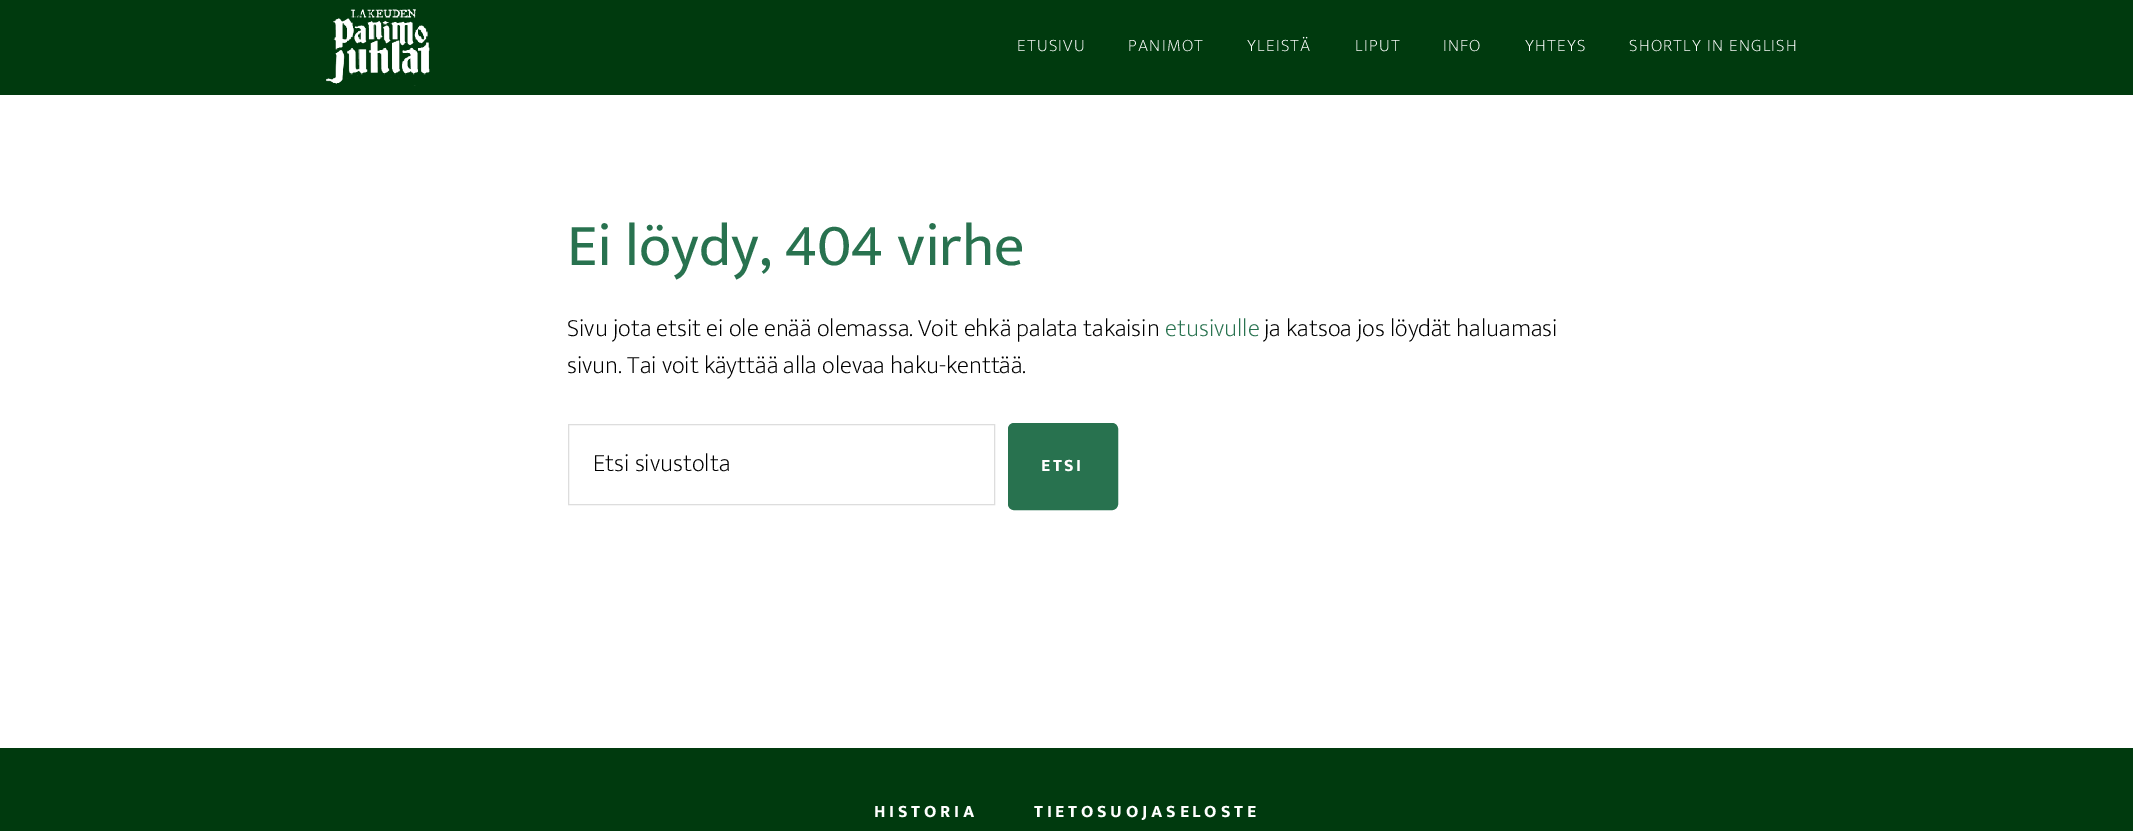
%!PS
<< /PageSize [2133 831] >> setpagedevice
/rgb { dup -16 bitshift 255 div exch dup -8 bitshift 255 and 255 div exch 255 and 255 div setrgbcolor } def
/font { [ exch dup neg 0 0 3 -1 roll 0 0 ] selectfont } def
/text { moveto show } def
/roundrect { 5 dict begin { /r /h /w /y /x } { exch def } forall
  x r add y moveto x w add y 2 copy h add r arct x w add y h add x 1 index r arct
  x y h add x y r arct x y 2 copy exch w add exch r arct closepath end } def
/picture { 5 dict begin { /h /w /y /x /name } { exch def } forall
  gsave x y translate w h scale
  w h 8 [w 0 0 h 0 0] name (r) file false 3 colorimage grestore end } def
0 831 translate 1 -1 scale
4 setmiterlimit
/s1 { /EkMukta-Regular 60 font 16#28724F rgb } def
/s2 { /EkMukta-ExtraLight 25 font 16#000000 rgb } def
/s3 { /EkMukta-ExtraLight 25 font 16#28724F rgb } def
16#FFFFFF rgb
0 0 2133 831 rectfill
16#003A0E rgb
0 0 2133 95 rectfill
(pic1.raw) 326 9 104 77 picture
/EkMukta-ExtraLight 17.5 font
16#FFFFFF rgb
1017 51 moveto 1.25 0 (ETUSIVU) ashow
1128 51 moveto 1.25 0 (PANIMOT) ashow
1247 51 moveto 1.25 0 (YLEISTÄ) ashow
1355 51 moveto 1.25 0 (LIPUT) ashow
1443 51 moveto 1.25 0 (INFO) ashow
1525 51 moveto 1.25 0 (YHTEYS) ashow
1629 51 moveto 1.25 0 (SHORTLY IN ENGLISH) ashow
s1
(Ei löydy, 404 virhe) 567 265 text
s2
(Sivu jota etsit ei ole enää olemassa. Voit ehkä palata takaisin) 567 336 text
s3
(etusivulle) 1165 336 text
s2
(ja katsoa jos löydät haluamasi) 1264 336 text
(sivun. Tai voit käyttää alla olevaa haku-kenttää.) 567 373 text
16#DDDDDD rgb
568.5 424.5 426 80 rectstroke
s2
(Etsi sivustolta) 593 471 text
16#28724F rgb
1009.5 424.5 107 84 4.5 roundrect gsave fill grestore
3 setlinewidth
stroke
/EkMukta-ExtraBold 17.5 font
16#FFFFFF rgb
1041 471 moveto 2.5 0 (ETSI) ashow
16#003A0E rgb
0 748 2133 83 rectfill
16#FFFFFF rgb
874 817 moveto 3.75 0 (HISTORIA) ashow
1034 817 moveto 3.75 0 (TIETOSUOJASELOSTE) ashow
showpage
